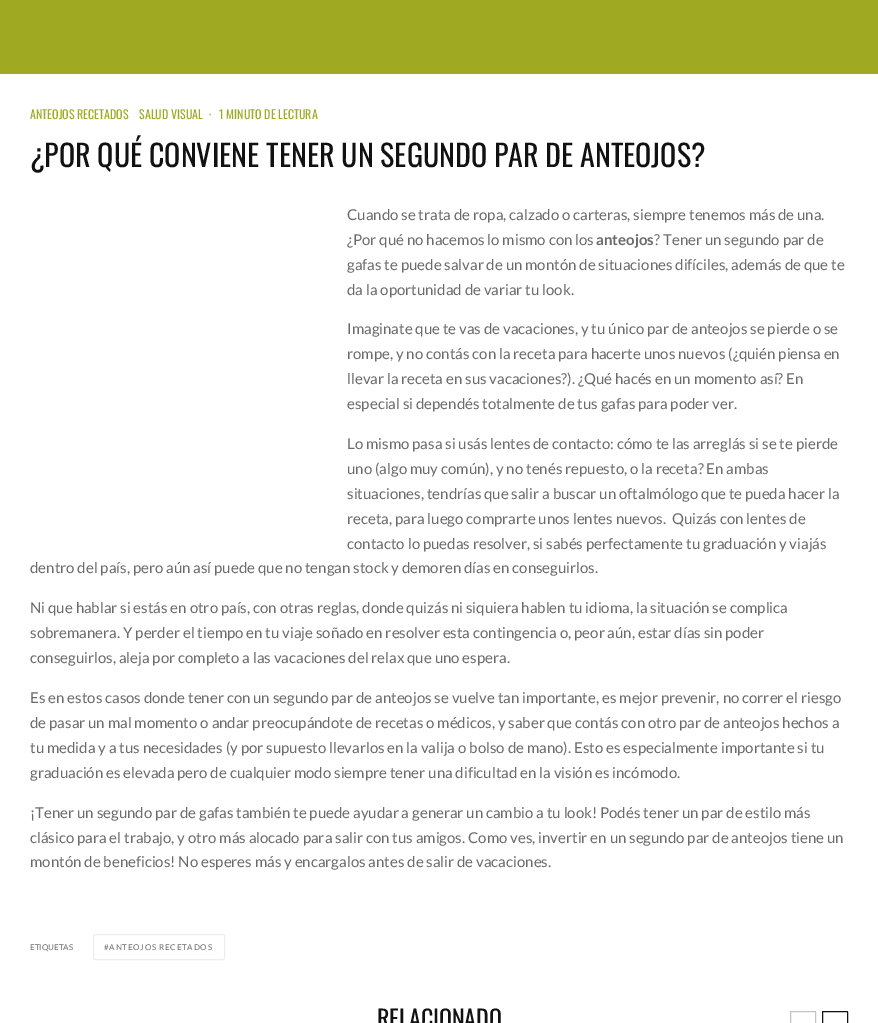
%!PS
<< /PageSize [878 1023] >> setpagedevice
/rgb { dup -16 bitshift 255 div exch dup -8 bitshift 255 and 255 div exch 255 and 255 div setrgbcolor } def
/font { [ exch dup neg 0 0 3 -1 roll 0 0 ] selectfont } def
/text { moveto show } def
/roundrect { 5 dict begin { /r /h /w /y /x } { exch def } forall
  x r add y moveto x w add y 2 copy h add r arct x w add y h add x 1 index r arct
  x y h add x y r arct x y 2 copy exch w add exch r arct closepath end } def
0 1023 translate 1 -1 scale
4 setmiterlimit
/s1 { /Oswald-Regular 12 font 16#9FA921 rgb } def
/s2 { /Oswald-Regular 30 font 16#111111 rgb } def
/s3 { /Lato-Regular 15 font 16#6B6B6B rgb } def
/s4 { /Lato-Bold 15 font 16#6B6B6B rgb } def
/s5 { /Lato-Regular 8 font 16#6B6B6B rgb } def
/s6 { /Oswald-Regular 24 font 16#111111 rgb } def
16#FFFFFF rgb
0 0 878 1023 rectfill
16#9FA921 rgb
0 0 878 74 rectfill
s1
(ANTEOJOS RECETADOS) 30 119 text
(SALUD VISUAL) 139 119 text
(·) 209 119 text
(1 MINUTO DE LECTURA) 219 119 text
s2
(¿POR QUÉ CONVIENE TENER UN SEGUNDO PAR DE ANTEOJOS?) 30 167 text
s3
(Cuando se trata de ropa, calzado o carteras, siempre tenemos más de una.) 347 220 text
(¿Por qué no hacemos lo mismo con los) 347 245 text
s4
(anteojos) 596 245 text
s3
(? Tener un segundo par de) 654 245 text
(gafas te puede salvar de un montón de situaciones difíciles, además de que te) 347 270 text
(da la oportunidad de variar tu look.) 347 295 text
(Imaginate que te vas de vacaciones, y tu único par de anteojos se pierde o se) 347 334 text
(rompe, y no contás con la receta para hacerte unos nuevos \(¿quién piensa en) 347 359 text
(llevar la receta en sus vacaciones?\). ¿Qué hacés en un momento así? En) 347 384 text
(especial si dependés totalmente de tus gafas para poder ver.) 347 409 text
(Lo mismo pasa si usás lentes de contacto: cómo te las arreglás si se te pierde) 347 449 text
(uno \(algo muy común\), y no tenés repuesto, o la receta? En ambas) 347 474 text
(situaciones, tendrías que salir a buscar un oftalmólogo que te pueda hacer la) 347 499 text
(receta, para luego comprarte unos lentes nuevos.  Quizás con lentes de) 347 524 text
(contacto lo puedas resolver, si sabés perfectamente tu graduación y viajás) 347 549 text
(dentro del país, pero aún así puede que no tengan stock y demoren días en conseguirlos.) 30 573 text
(Ni que hablar si estás en otro país, con otras reglas, donde quizás ni siquiera hablen tu idioma, la situación se complica) 30 613 text
(sobremanera. Y perder el tiempo en tu viaje soñado en resolver esta contingencia o, peor aún, estar días sin poder) 30 638 text
(conseguirlos, aleja por completo a las vacaciones del relax que uno espera.) 30 663 text
(Es en estos casos donde tener con un segundo par de anteojos se vuelve tan importante, es mejor prevenir, no correr el riesgo) 30 703 text
(de pasar un mal momento o andar preocupándote de recetas o médicos, y saber que contás con otro par de anteojos hechos a) 30 728 text
(tu medida y a tus necesidades \(y por supuesto llevarlos en la valija o bolso de mano\). Esto es especialmente importante si tu) 30 753 text
(graduación es elevada pero de cualquier modo siempre tener una dificultad en la visión es incómodo.) 30 778 text
(¡Tener un segundo par de gafas también te puede ayudar a generar un cambio a tu look! Podés tener un par de estilo más) 30 818 text
(clásico para el trabajo, y otro más alocado para salir con tus amigos. Como ves, invertir en un segundo par de anteojos tiene un) 30 843 text
(montón de beneficios! No esperes más y encargalos antes de salir de vacaciones.) 30 867 text
s5
(ETIQUETAS) 30 950 text
16#EEEEEE rgb
93.5 934.5 131 25 1.5 roundrect stroke
16#6B6B6B rgb
104 950 moveto 0.75 0 (#ANTEOJOS RECETADOS) ashow
s6
(RELACIONADO) 377 1028 text
16#C4C4C4 rgb
790.5 1011.5 25 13 0.5 roundrect stroke
16#111111 rgb
822.5 1011.5 25 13 0.5 roundrect stroke
showpage
